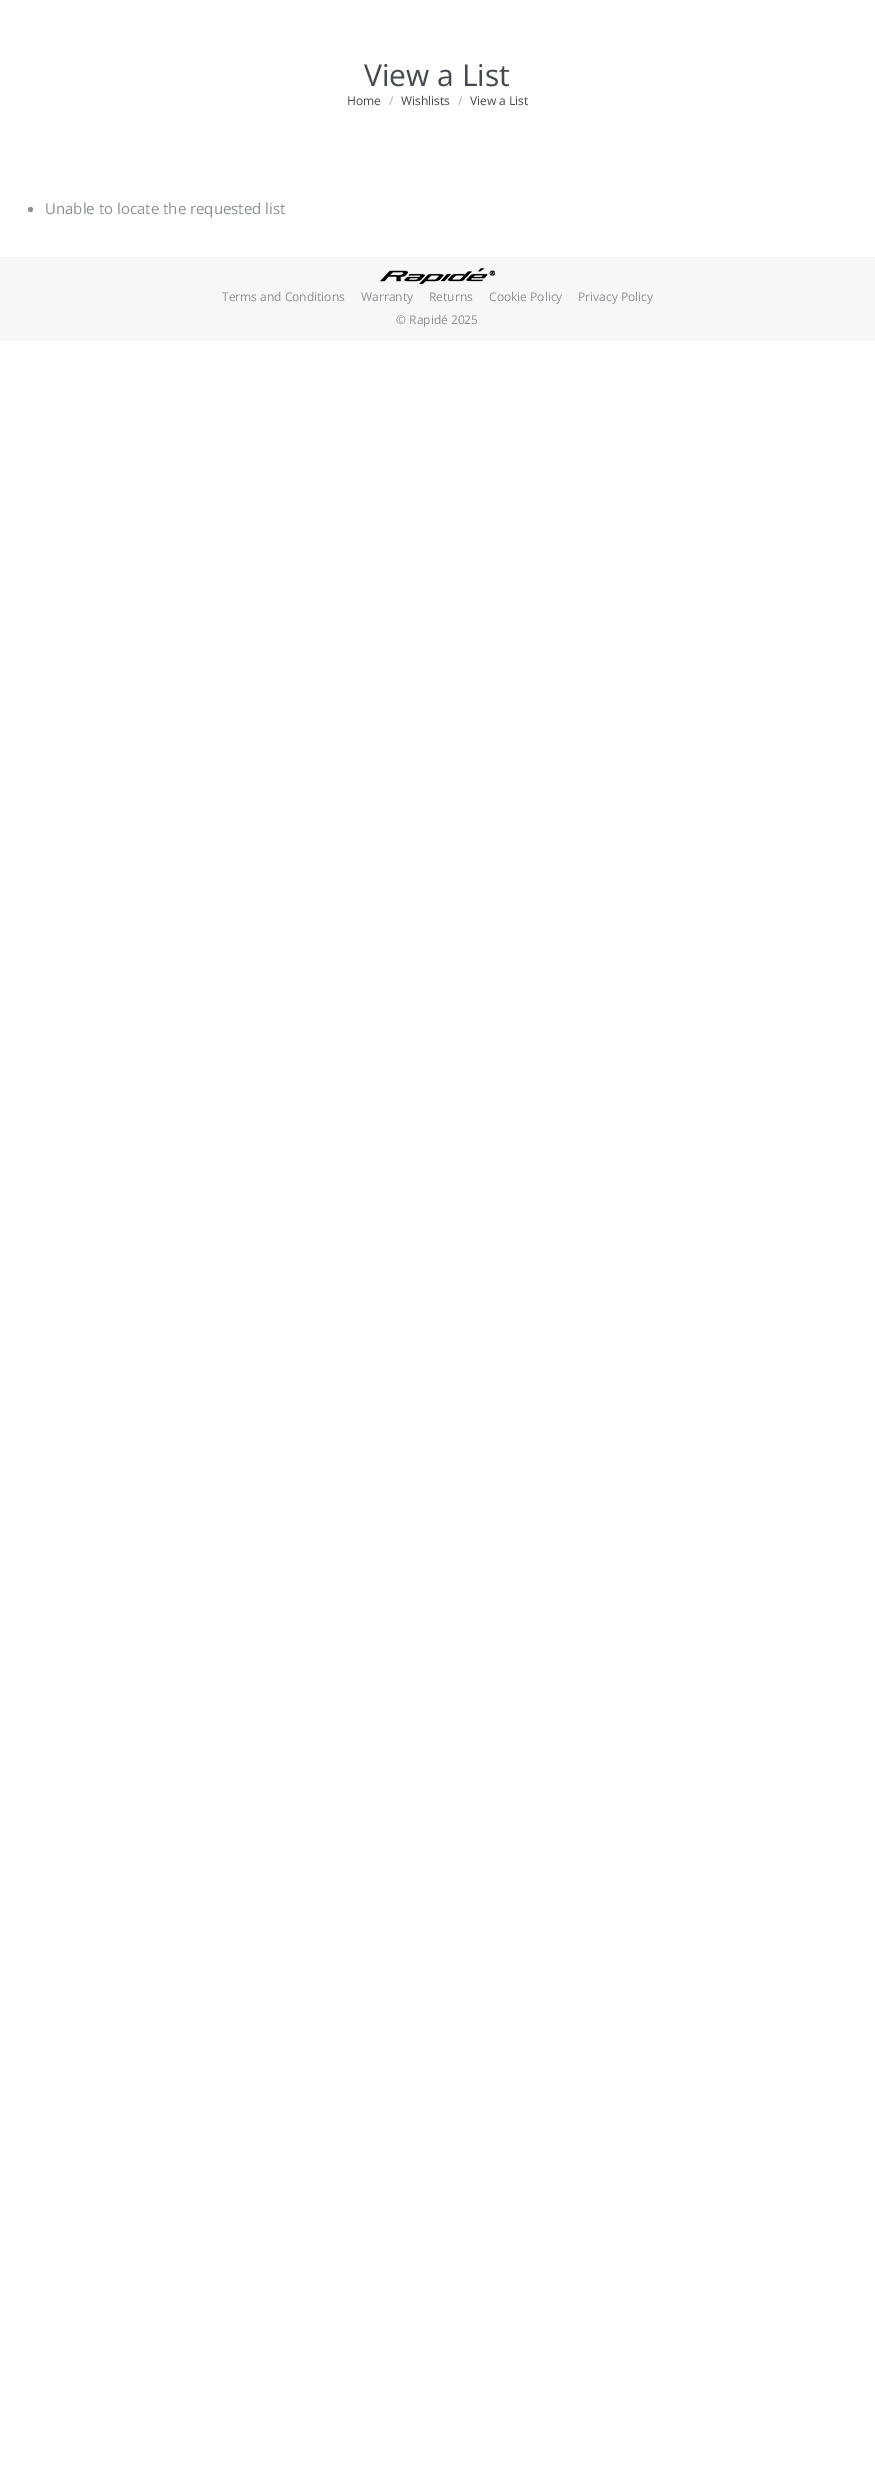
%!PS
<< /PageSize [875 2467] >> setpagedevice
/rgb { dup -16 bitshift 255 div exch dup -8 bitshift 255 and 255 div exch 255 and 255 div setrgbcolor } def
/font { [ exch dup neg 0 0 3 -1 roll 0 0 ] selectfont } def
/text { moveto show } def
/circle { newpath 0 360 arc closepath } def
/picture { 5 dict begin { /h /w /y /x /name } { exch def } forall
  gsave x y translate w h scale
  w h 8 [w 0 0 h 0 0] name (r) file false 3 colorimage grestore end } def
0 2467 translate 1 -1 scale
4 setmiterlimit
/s1 { /OpenSans-Regular 30 font 16#474950 rgb } def
/s2 { /OpenSans-Regular 12 font 16#474950 rgb } def
/s3 { /OpenSans-Regular 12 font 16#A3A4A8 rgb } def
/s4 { /OpenSans-Regular 15 font 16#8D9095 rgb } def
/s5 { /OpenSans-Regular 12 font 16#8D9095 rgb } def
16#FFFFFF rgb
0 0 875 2467 rectfill
s1
(View a List) 364 86 text
s2
(Home) 347 105 text
s3
(/) 389 105 text
s2
(Wishlists) 401 105 text
s3
(/) 458 105 text
s2
(View a List) 470 105 text
16#8D9095 rgb
30.5 209.5 2.5 circle fill
s4
(Unable to locate the requested list) 45 214 text
16#F7F7F8 rgb
0 257 875 84 rectfill
(pic1.raw) 380 268 115 16 picture
s5
(Terms and Conditions) 222 301 text
(Warranty) 361 301 text
(Returns) 429 301 text
(Cookie Policy) 489 301 text
(Privacy Policy) 578 301 text
(© Rapidé 2025) 396 324 text
showpage
